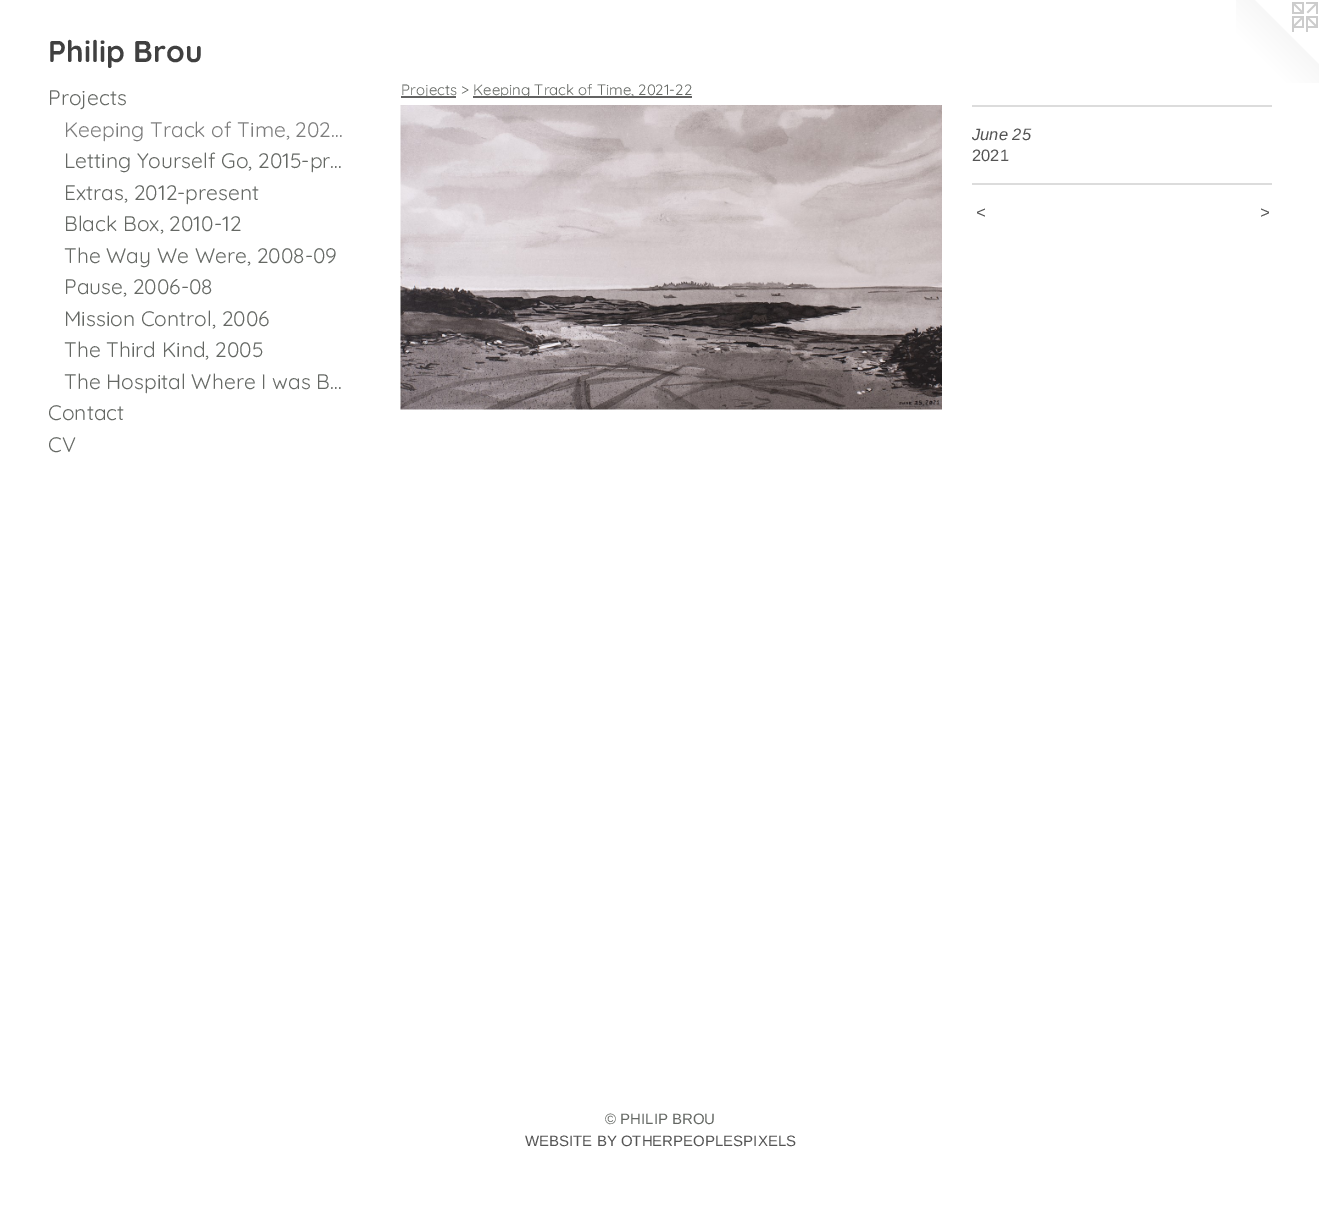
%!PS
<< /PageSize [1319 1218] >> setpagedevice
/rgb { dup -16 bitshift 255 div exch dup -8 bitshift 255 and 255 div exch 255 and 255 div setrgbcolor } def
/font { [ exch dup neg 0 0 3 -1 roll 0 0 ] selectfont } def
/text { moveto show } def
/picture { 5 dict begin { /h /w /y /x /name } { exch def } forall
  gsave x y translate w h scale
  w h 8 [w 0 0 h 0 0] name (r) file false 3 colorimage grestore end } def
0 1218 translate 1 -1 scale
4 setmiterlimit
/s1 { /Quicksand-Light 30 font 16#404040 rgb } def
/s2 { /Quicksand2-Light 21 font 16#656864 rgb } def
/s3 { /Quicksand2-Light 21 font 16#7D7D7D rgb } def
/s4 { /Quicksand2-Light 15 font 16#656864 rgb } def
/s5 { /LiberationSans-Italic 16.5 font 16#545454 rgb } def
/s6 { /LiberationSans-Regular 16.5 font 16#545454 rgb } def
/s7 { /LiberationSans-Regular 15 font 16#656864 rgb } def
/s8 { /LiberationSans-Regular 15 font 16#545454 rgb } def
16#FFFFFF rgb
0 0 1319 1218 rectfill
s1
(Philip Brou) 48 62 text
(pic1.raw) 1236 0 83 83 picture
s2
(Projects) 48 105 text
s3
(Keeping Track of Time, 202…) 64 137 text
s2
(Letting Yourself Go, 2015-pr…) 64 168 text
(Extras, 2012-present) 64 200 text
(Black Box, 2010-12) 64 231 text
(The Way We Were, 2008-09) 64 263 text
(Pause, 2006-08) 64 294 text
(Mission Control, 2006) 64 326 text
(The Third Kind, 2005) 64 357 text
(The Hospital Where I was B…) 64 389 text
(Contact) 48 420 text
(CV) 48 452 text
16#636363 rgb
401 96 55 2 rectfill
s4
(Projects >) 401 95 text
16#636363 rgb
473 96 219 2 rectfill
s4
(Keeping Track of Time, 2021-22) 473 95 text
(pic2.raw) 400 105 542 305 picture
16#DCDCDC rgb
972 105 300 2 rectfill
s5
(June 25) 972 140 text
s6
(2021) 972 161 text
16#DCDCDC rgb
972 183 300 2 rectfill
/LiberationSans-Italic 16.5 font
16#545454 rgb
976 218 moveto 2 0 (<) ashow
1260 218 moveto 2 0 (>) ashow
s7
(© PHILIP BROU) 605 1124 text
s8
(WEBSITE BY OTHERPEOPLESPIXELS) 525 1146 text
showpage
